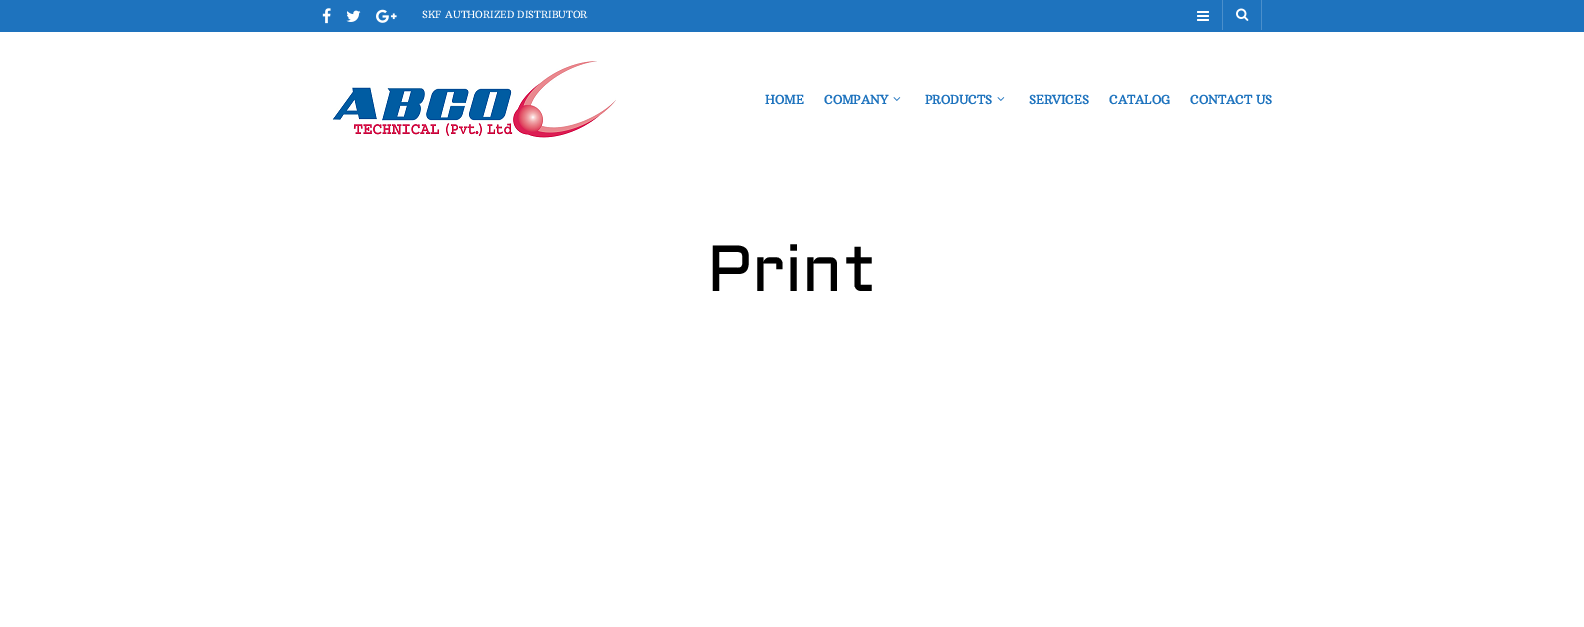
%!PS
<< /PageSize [1584 627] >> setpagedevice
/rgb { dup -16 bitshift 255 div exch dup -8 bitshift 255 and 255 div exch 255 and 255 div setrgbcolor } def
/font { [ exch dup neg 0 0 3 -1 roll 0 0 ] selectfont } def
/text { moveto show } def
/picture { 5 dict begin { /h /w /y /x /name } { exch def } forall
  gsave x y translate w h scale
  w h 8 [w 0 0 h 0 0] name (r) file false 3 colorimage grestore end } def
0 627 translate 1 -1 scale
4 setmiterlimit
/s1 { /ArbutusSlab-Regular 10 font 16#FFFFFF rgb } def
/s2 { /ArbutusSlab-Bold 12 font 16#1E73BE rgb } def
/s3 { /Aldrich-Regular 65 font 16#000000 rgb } def
16#FFFFFF rgb
0 0 1584 627 rectfill
16#1E73BE rgb
0 0 1584 32 rectfill
(pic1.raw) 322 8 9 16 picture
(pic2.raw) 346 10 15 12 picture
(pic3.raw) 376 9 21 14 picture
s1
(SKF AUTHORIZED DISTRIBUTOR) 422 18 text
(pic4.raw) 1197 11 12 10 picture
16#4B8FCB rgb
1261 0 1 30 rectfill
1222 0 1 30 rectfill
(pic5.raw) 1236 8 13 13 picture
(pic6.raw) 332 61 284 77 picture
s2
(HOME) 765 104 text
(COMPANY) 824 104 text
(pic7.raw) 893 97 8 4 picture
(PRODUCTS) 925 104 text
(pic7.raw) 997 97 8 4 picture
(SERVICES) 1029 104 text
(CATALOG) 1109 104 text
(CONTACT US) 1190 104 text
s3
(Print) 707 291 text
showpage
